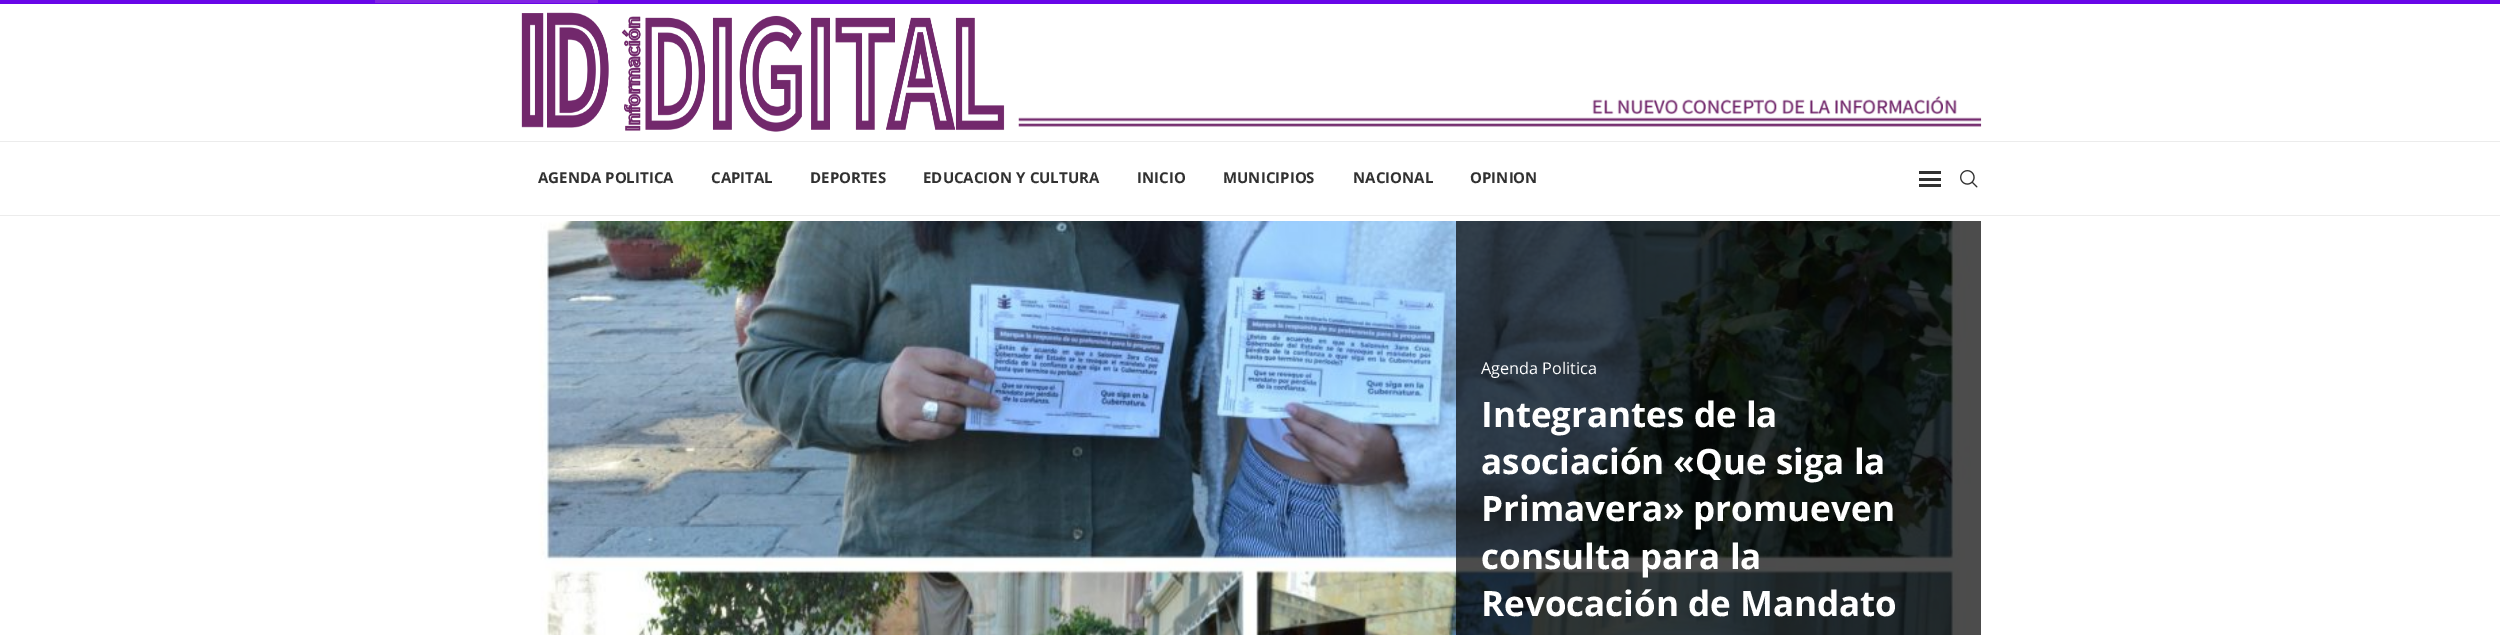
%!PS
<< /PageSize [2500 635] /PageUsesTransparency true >> setpagedevice
/rgb { dup -16 bitshift 255 div exch dup -8 bitshift 255 and 255 div exch 255 and 255 div setrgbcolor } def
/font { [ exch dup neg 0 0 3 -1 roll 0 0 ] selectfont } def
/text { moveto show } def
/alpha { dup .setfillconstantalpha .setstrokeconstantalpha } def
/picture { 5 dict begin { /h /w /y /x /name } { exch def } forall
  gsave x y translate w h scale
  w h 8 [w 0 0 h 0 0] name (r) file false 3 colorimage grestore end } def
0 .pushpdf14devicefilter
0 635 translate 1 -1 scale
4 setmiterlimit
/s1 { /OpenSans-Bold 15 font 16#313131 rgb } def
/s2 { /OpenSans-Regular 16.25 font 16#FFFFFF rgb } def
/s3 { /OpenSans-Bold 35 font 16#FFFFFF rgb } def
16#FFFFFF rgb
0 0 2500 635 rectfill
16#6806E8 rgb
0 0 2500 4 rectfill
16#8224E3 rgb
375 0 223 3 rectfill
(pic1.raw) 521 12 484 120 picture
(pic2.raw) 1018 95 964 32 picture
16#ECECEC rgb
0 141 2500 1 rectfill
0 215 2500 1 rectfill
s1
(AGENDA POLITICA) 538 183 text
(CAPITAL) 711 183 text
(DEPORTES) 810 183 text
(EDUCACION Y CULTURA) 923 183 text
(INICIO) 1137 183 text
(MUNICIPIOS) 1223 183 text
(NACIONAL) 1353 183 text
(OPINION) 1470 183 text
1919 171 22 3 rectfill
1919 184 22 3 rectfill
1919 178 22 3 rectfill
(pic3.raw) 1960 170 18 18 picture
(pic4.raw) 519 221 1462 414 picture
0.7 alpha
16#000000 rgb
1456 221 525 414 rectfill
1 alpha
s2
(Agenda Politica) 1481 374 text
s3
(Integrantes de la) 1481 427 text
(asociación «Que siga la) 1481 474 text
(Primavera» promueven) 1481 521 text
(consulta para la) 1481 569 text
(Revocación de Mandato) 1481 616 text
.poppdf14devicefilter showpage
